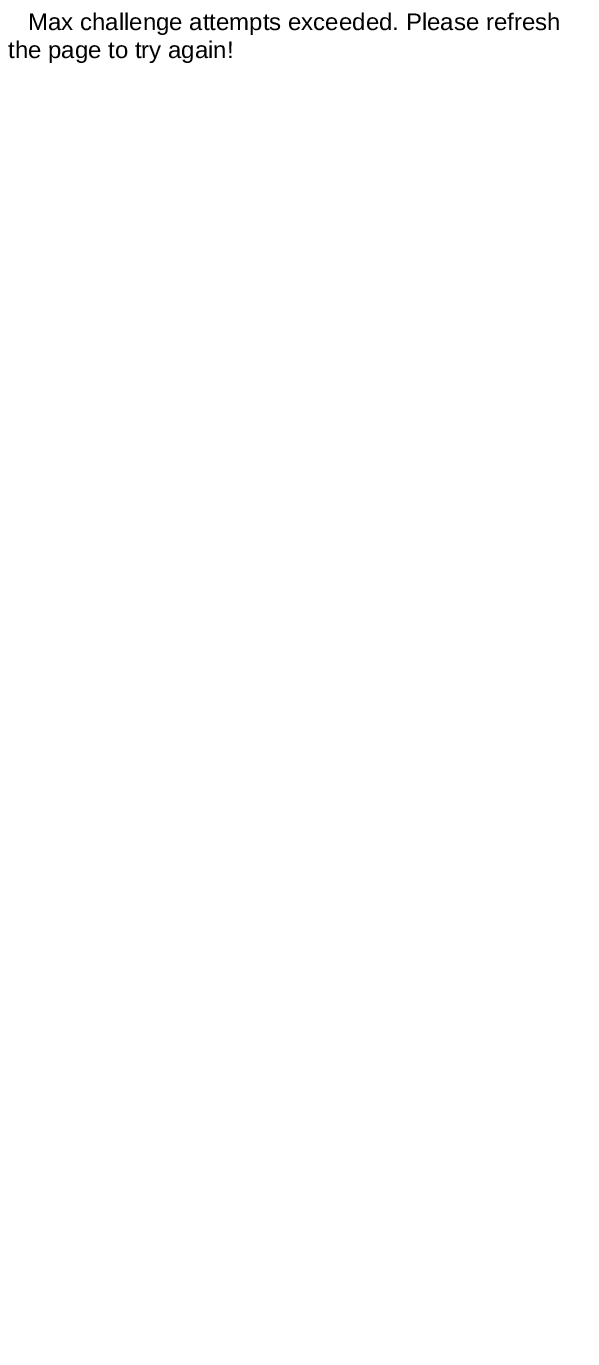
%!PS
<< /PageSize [599 1365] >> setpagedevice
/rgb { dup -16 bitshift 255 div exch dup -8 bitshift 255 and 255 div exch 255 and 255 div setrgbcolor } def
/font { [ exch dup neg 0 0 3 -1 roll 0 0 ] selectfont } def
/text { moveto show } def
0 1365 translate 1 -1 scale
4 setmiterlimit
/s1 { /LiberationSans-Regular 24 font 16#000000 rgb } def
16#FFFFFF rgb
0 0 599 1365 rectfill
s1
(Max challenge attempts exceeded. Please refresh) 28 30 text
(the page to try again!) 8 58 text
showpage
